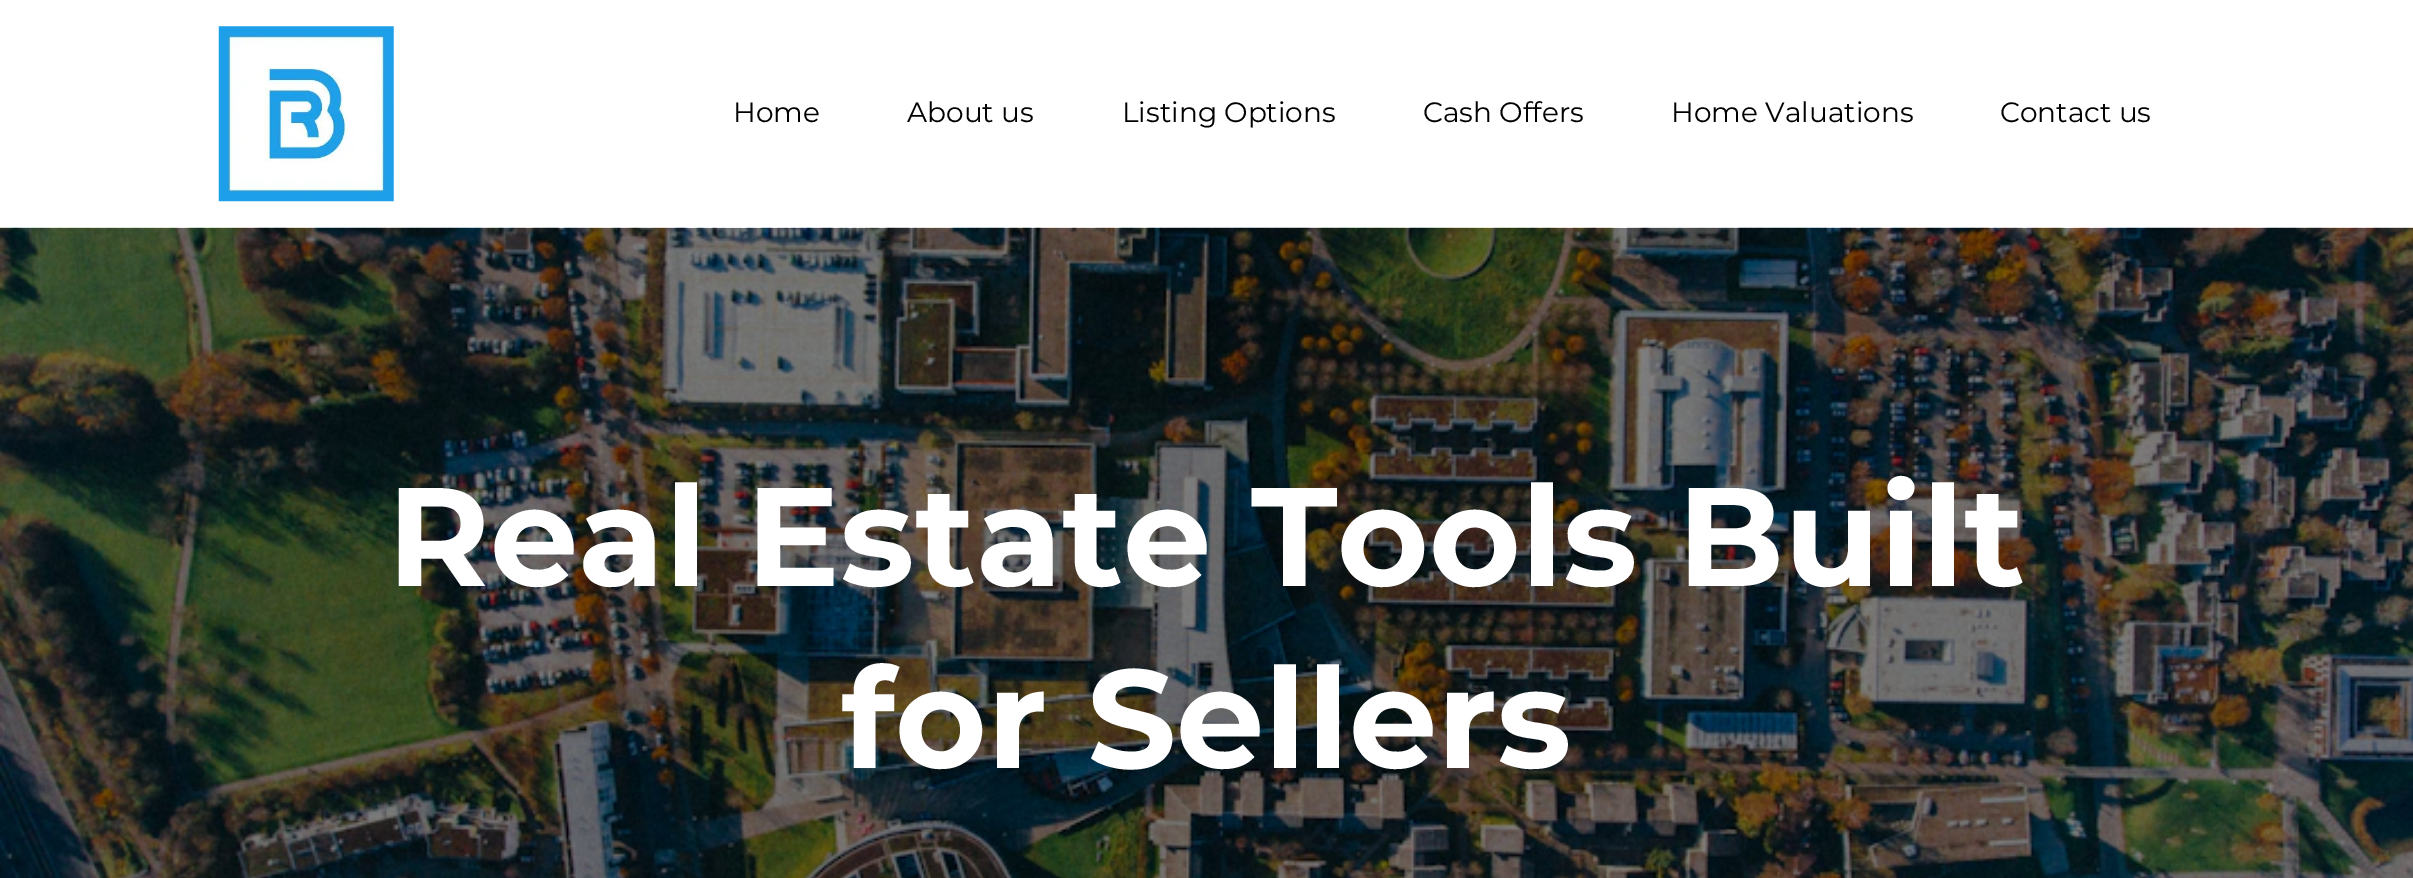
%!PS
<< /PageSize [2413 878] >> setpagedevice
/rgb { dup -16 bitshift 255 div exch dup -8 bitshift 255 and 255 div exch 255 and 255 div setrgbcolor } def
/font { [ exch dup neg 0 0 3 -1 roll 0 0 ] selectfont } def
/text { moveto show } def
/picture { 5 dict begin { /h /w /y /x /name } { exch def } forall
  gsave x y translate w h scale
  w h 8 [w 0 0 h 0 0] name (r) file false 3 colorimage grestore end } def
0 878 translate 1 -1 scale
4 setmiterlimit
/s1 { /Montserrat-Regular 28 font 16#000000 rgb } def
/s2 { /Montserrat-Bold 140 font 16#FFFFFF rgb } def
16#FFFFFF rgb
0 0 2413 878 rectfill
(pic1.raw) 218 26 176 176 picture
s1
(Home) 733 122 text
(About us) 907 122 text
(Listing Options) 1122 122 text
(Cash Offers) 1423 122 text
(Home Valuations) 1671 122 text
(Contact us) 2000 122 text
0 228 2413 650 rectfill
(pic2.raw) 0 227 2413 651 picture
s2
(Real Estate Tools Built) 387 586 text
(for Sellers) 841 768 text
showpage
